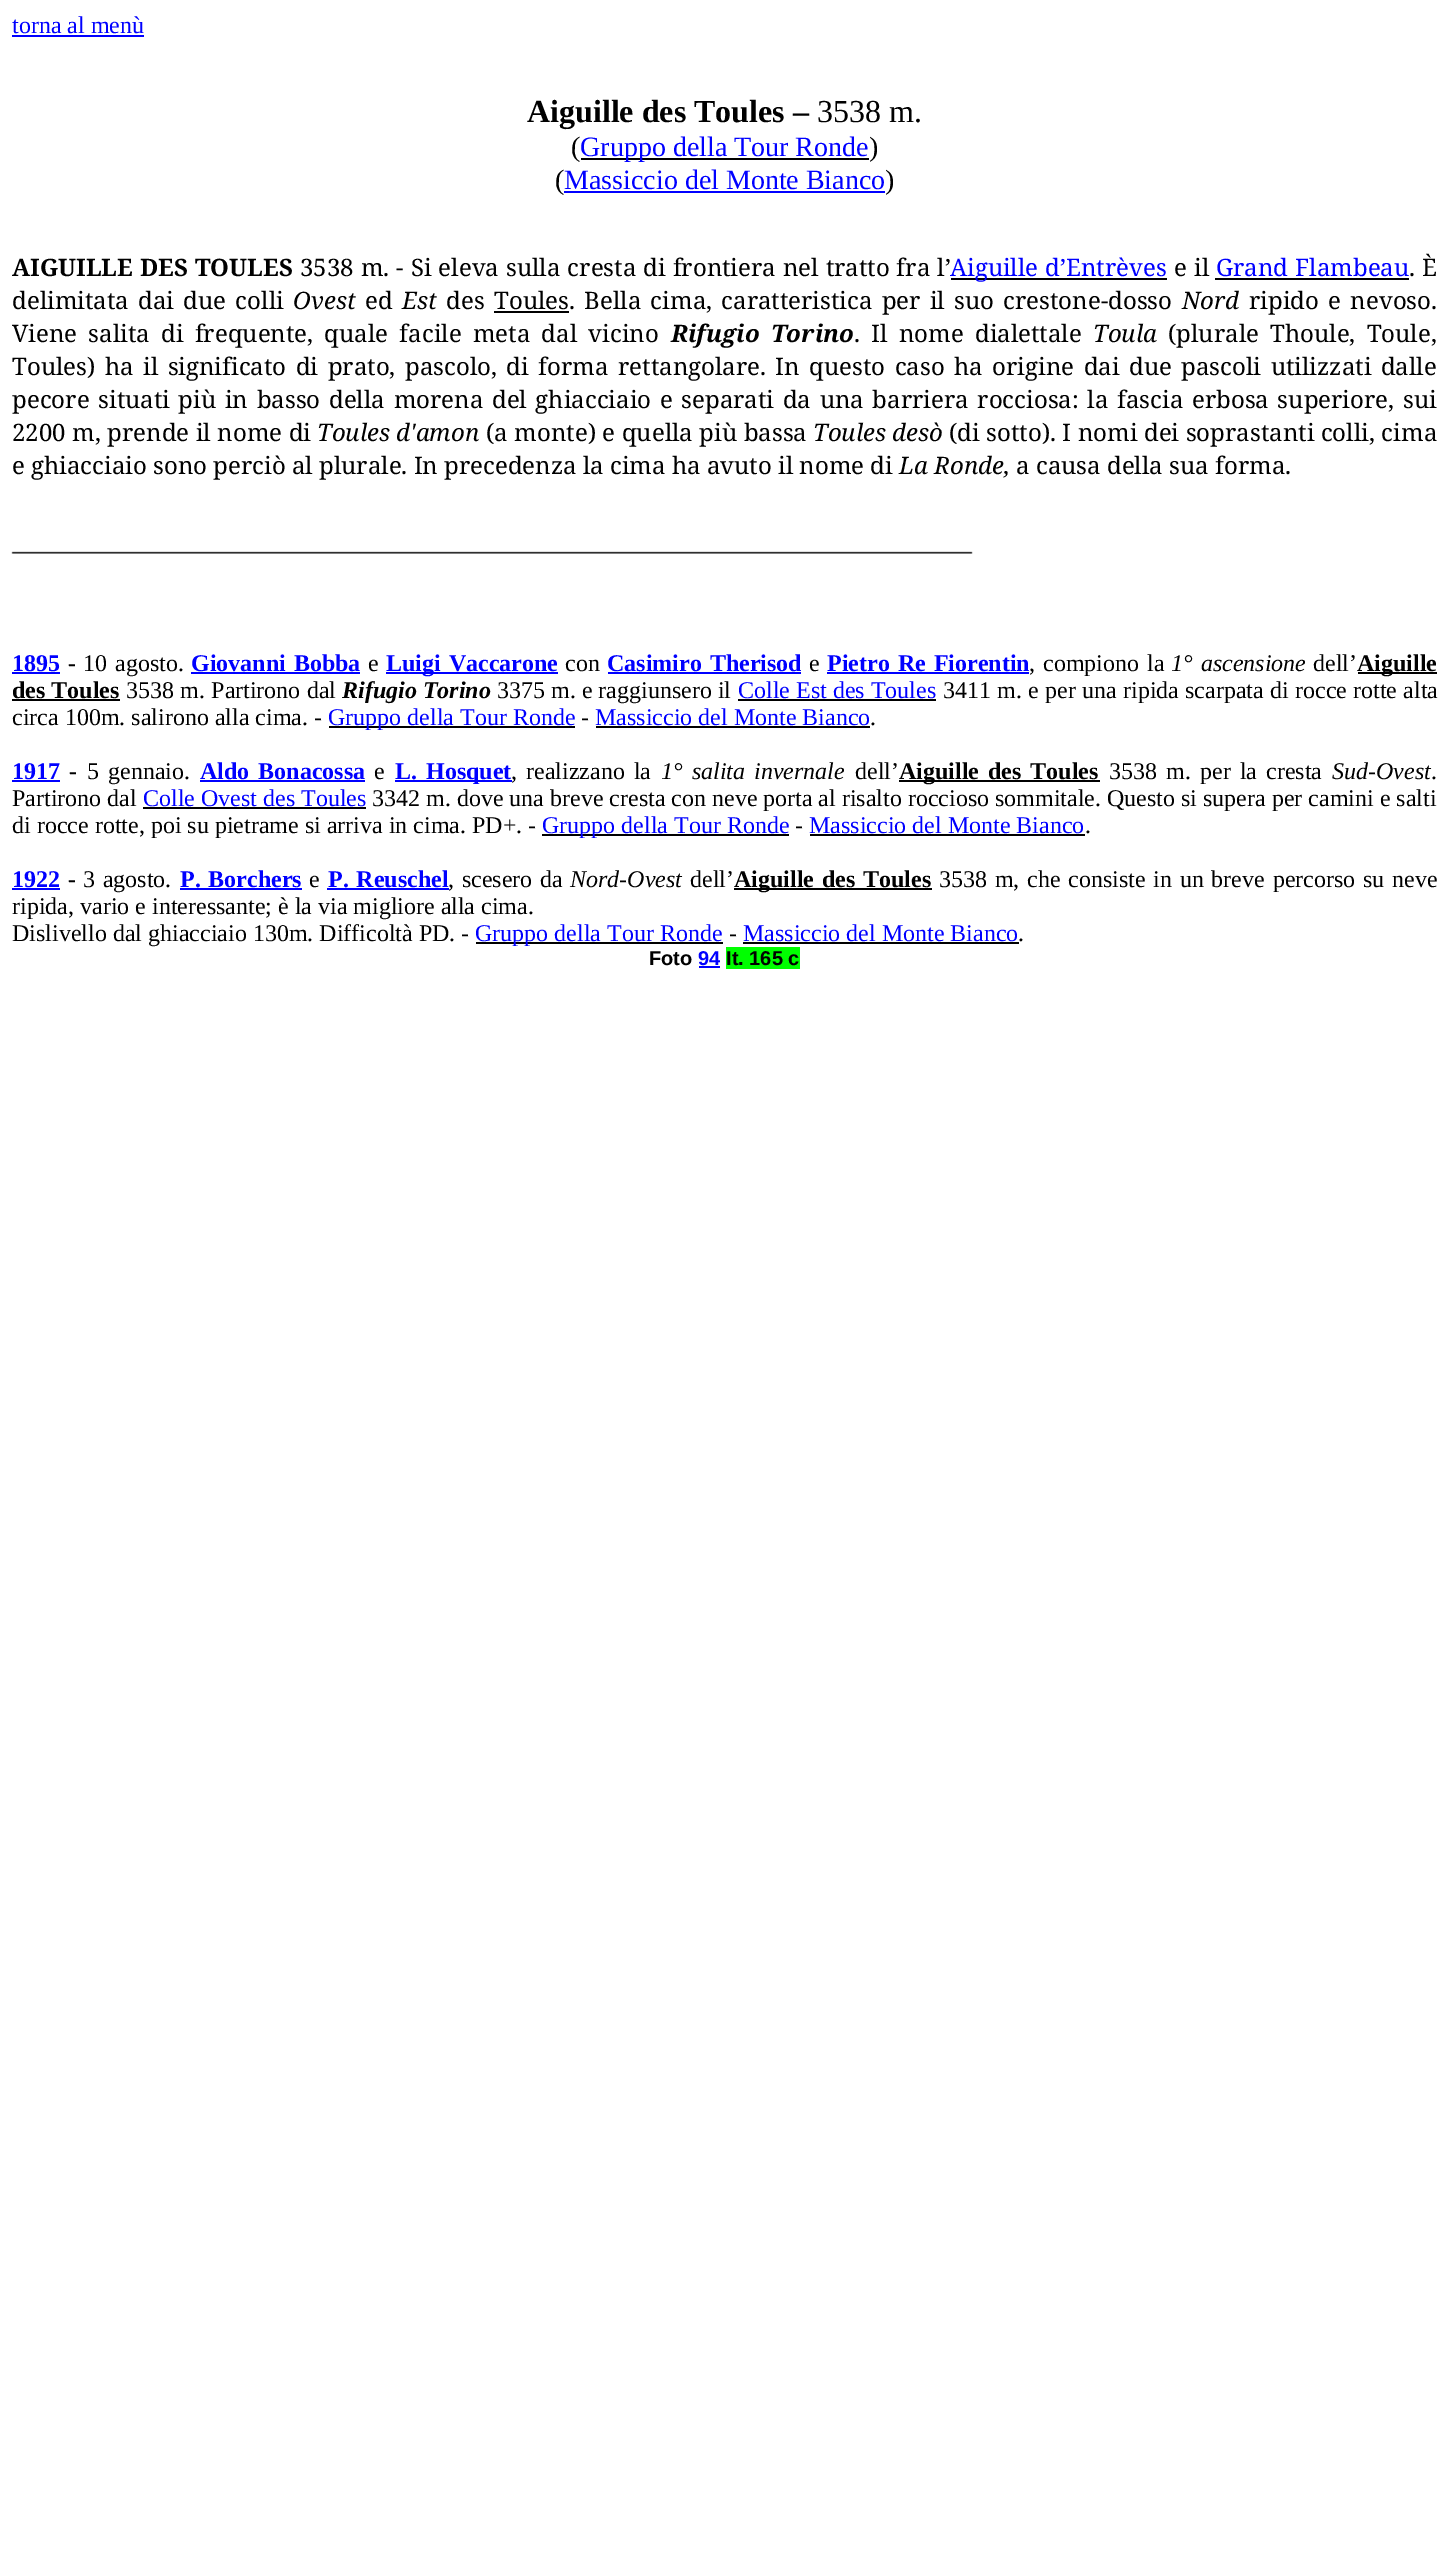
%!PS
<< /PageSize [1449 2561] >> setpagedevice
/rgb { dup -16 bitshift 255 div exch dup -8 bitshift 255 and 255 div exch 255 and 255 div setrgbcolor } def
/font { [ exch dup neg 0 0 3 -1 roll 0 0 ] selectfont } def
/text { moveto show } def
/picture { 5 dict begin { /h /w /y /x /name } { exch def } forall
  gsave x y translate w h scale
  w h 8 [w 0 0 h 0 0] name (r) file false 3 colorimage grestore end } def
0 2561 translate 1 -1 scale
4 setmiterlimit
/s1 { /LiberationSerif-Regular 24 font 16#0000FF rgb } def
/s2 { /LiberationSerif-Bold 32 font 16#000000 rgb } def
/s3 { /LiberationSerif-Regular 32 font 16#000000 rgb } def
/s4 { /LiberationSerif-Regular 28 font 16#000000 rgb } def
/s5 { /LiberationSerif-Regular 28 font 16#0000FF rgb } def
/s6 { /NotoSerif-Regular 24 font 16#0000FF rgb } def
/s7 { /NotoSerif-Italic 24 font 16#000000 rgb } def
/s8 { /NotoSerif-Regular 24 font 16#000000 rgb } def
/s9 { /LiberationSerif-Bold 24 font 16#0000FF rgb } def
/s10 { /LiberationSerif-Bold 24 font 16#000000 rgb } def
/s11 { /LiberationSerif-Regular 24 font 16#000000 rgb } def
/s12 { /LiberationSerif-BoldItalic 24 font 16#000000 rgb } def
/s13 { /LiberationSerif-Italic 24 font 16#000000 rgb } def
/s14 { /LiberationSans-Bold 20 font 16#000000 rgb } def
/s15 { /LiberationSans-Bold 20 font 16#0000FF rgb } def
16#FFFFFF rgb
0 0 1449 2561 rectfill
s1
(torna al menù) 12 33 text
12 35 132 2 rectfill
s2
(Aiguille des Toules –) 527 122 text
s3
(3538 m.) 817 122 text
s4
(\() 571 156 text
581 158 288 2 rectfill
s5
(Gruppo della Tour Ronde) 580 156 text
s4
(\)) 869 156 text
(\() 555 189 text
16#0000FF rgb
564 191 321 2 rectfill
(Massiccio del Monte Bianco) 564 189 text
s4
(\)) 885 189 text
/NotoSerif-Bold 24 font
12 276 moveto 0.75 0 32 (AIGUILLE DES TOULES) widthshow
/NotoSerif-Regular 24 font
300 276 moveto 0.75 0 32 (3538 m. - Si eleva sulla cresta di frontiera nel tratto fra l’) widthshow
951 278 216 2 rectfill
16#0000FF rgb
950 276 moveto 0.75 0 32 (Aiguille d’Entrèves) widthshow
16#000000 rgb
1174 276 moveto 0.75 0 32 (e il) widthshow
s6
(Grand) 1216 276 text
16#000000 rgb
1215 278 194 2 rectfill
s6
(Flambeau) 1295 276 text
16#000000 rgb
1409 276 moveto 1 0 32 (. È) widthshow
12 309 moveto 3 0 32 (delimitata dai due colli) widthshow
s7
(Ovest) 293 309 text
s8
(ed) 365 309 text
s7
(Est) 402 309 text
s8
(des) 446 309 text
(Toules) 494 309 text
569 309 moveto 3 0 32 (. Bella cima, caratteristica per il suo crestone-dosso) widthshow
494 311 75 2 rectfill
s7
(Nord) 1182 309 text
/NotoSerif-Regular 24 font
1249 309 moveto 3 0 32 (ripido e nevoso.) widthshow
12 342 moveto 5 0 32 (Viene salita di frequente, quale facile meta dal vicino) widthshow
/NotoSerif-BoldItalic 24 font
671 342 moveto 5 0 32 (Rifugio Torino) widthshow
/NotoSerif-Regular 24 font
854 342 moveto 5 0 32 (. Il nome dialettale) widthshow
s7
(Toula) 1093 342 text
/NotoSerif-Regular 24 font
1168 342 moveto 5 0 32 (\(plurale Thoule, Toule,) widthshow
12 375 moveto 3.25 0 32 (Toules\) ha il significato di prato, pascolo, di forma rettangolare. In questo caso ha origine dai due pascoli utilizzati dalle) widthshow
12 408 moveto 2.4 0 32 (pecore situati più in basso della morena del ghiacciaio e separati da una barriera rocciosa: la fascia erbosa superiore, sui) widthshow
12 441 moveto 0.25 0 32 (2200 m, prende il nome di) widthshow
s7
(Toules d'amon) 317 441 text
/NotoSerif-Regular 24 font
486 441 moveto 0.25 0 32 (\(a monte\) e quella più bassa) widthshow
s7
(Toules desò) 813 441 text
/NotoSerif-Regular 24 font
949 441 moveto 0.25 0 32 (\(di sotto\). I nomi dei soprastanti colli, cima) widthshow
(e ghiacciaio sono perciò al plurale. In precedenza la cima ha avuto il nome di) 12 474 text
s7
(La Ronde,) 899 474 text
s8
(a causa della sua forma.) 1016 474 text
(pic1.raw) 11 551 962 3 picture
s9
(1895) 12 671 text
12 672 48 2 rectfill
s10
(-) 68 671 text
/LiberationSerif-Regular 24 font
83 671 moveto 2 0 32 (10 agosto.) widthshow
/LiberationSerif-Bold 24 font
16#0000FF rgb
191 671 moveto 2 0 32 (Giovanni Bobba) widthshow
191 672 169 2 rectfill
s11
(e) 368 671 text
16#0000FF rgb
386 672 172 2 rectfill
/LiberationSerif-Bold 24 font
386 671 moveto 2 0 32 (Luigi Vaccarone) widthshow
s11
(con) 565 671 text
/LiberationSerif-Bold 24 font
16#0000FF rgb
607 671 moveto 2 0 32 (Casimiro Therisod) widthshow
608 672 193 2 rectfill
s11
(e) 809 671 text
/LiberationSerif-Bold 24 font
16#0000FF rgb
827 671 moveto 2 0 32 (Pietro Re Fiorentin) widthshow
827 672 202 2 rectfill
/LiberationSerif-Regular 24 font
16#000000 rgb
1029 671 moveto 2 0 32 (, compiono la) widthshow
/LiberationSerif-Italic 24 font
1171 671 moveto 2 0 32 (1° ascensione) widthshow
s11
(dell’) 1313 671 text
1358 672 79 2 rectfill
s10
(Aiguille) 1357 671 text
(des Toules) 12 698 text
12 699 108 2 rectfill
/LiberationSerif-Regular 24 font
126 698 moveto 0.25 0 32 (3538 m. Partirono dal) widthshow
s12
(Rifugio Torino) 342 698 text
s11
(3375 m. e raggiunsero il) 497 698 text
s1
(Colle Est des Toules) 738 698 text
16#000000 rgb
738 699 198 2 rectfill
943 698 moveto 0.25 0 32 (3411 m. e per una ripida scarpata di rocce rotte alta) widthshow
(circa 100m. salirono alla cima. -) 12 725 text
329 726 246 2 rectfill
s1
(Gruppo della Tour Ronde) 328 725 text
s11
(-) 581 725 text
s1
(Massiccio del Monte Bianco) 595 725 text
s11
(.) 870 725 text
596 726 274 2 rectfill
s9
(1917) 12 779 text
12 780 48 2 rectfill
s10
(-) 69 779 text
/LiberationSerif-Regular 24 font
87 779 moveto 3 0 32 (5 gennaio.) widthshow
/LiberationSerif-Bold 24 font
16#0000FF rgb
200 779 moveto 3 0 32 (Aldo Bonacossa) widthshow
200 780 165 2 rectfill
s11
(e) 374 779 text
16#0000FF rgb
395 780 117 2 rectfill
/LiberationSerif-Bold 24 font
395 779 moveto 3 0 32 (L. Hosquet) widthshow
/LiberationSerif-Regular 24 font
16#000000 rgb
511 779 moveto 3 0 32 (, realizzano la) widthshow
/LiberationSerif-Italic 24 font
661 779 moveto 3 0 32 (1° salita invernale) widthshow
s11
(dell’) 855 779 text
899 780 201 2 rectfill
/LiberationSerif-Bold 24 font
899 779 moveto 3 0 32 (Aiguille des Toules) widthshow
/LiberationSerif-Regular 24 font
1109 779 moveto 3 0 32 (3538 m.) widthshow
1200 779 moveto 3 0 32 (per la cresta) widthshow
s13
(Sud-Ovest) 1332 779 text
s11
(.) 1431 779 text
(Partirono dal) 12 806 text
s1
(Colle Ovest des Toules) 143 806 text
16#000000 rgb
143 807 223 2 rectfill
(3342 m. dove una breve cresta con neve porta al risalto roccioso sommitale. Questo si supera per camini e salti) 372 806 text
(di rocce rotte, poi su pietrame si arriva in cima. PD+. -) 12 833 text
542 834 247 2 rectfill
s1
(Gruppo della Tour Ronde) 542 833 text
s11
(-) 795 833 text
s1
(Massiccio del Monte Bianco) 809 833 text
s11
(.) 1085 833 text
810 834 275 2 rectfill
s9
(1922) 12 887 text
12 888 48 2 rectfill
s10
(-) 68 887 text
/LiberationSerif-Regular 24 font
83 887 moveto 1.75 0 32 (3 agosto.) widthshow
/LiberationSerif-Bold 24 font
16#0000FF rgb
180 887 moveto 1.75 0 32 (P. Borchers) widthshow
180 888 122 2 rectfill
s11
(e) 309 887 text
/LiberationSerif-Bold 24 font
16#0000FF rgb
328 887 moveto 1.75 0 32 (P. Reuschel) widthshow
327 888 122 2 rectfill
/LiberationSerif-Regular 24 font
16#000000 rgb
448 887 moveto 1.75 0 32 (, scesero da) widthshow
s13
(Nord-Ovest) 570 887 text
s11
(dell’) 690 887 text
734 888 198 2 rectfill
/LiberationSerif-Bold 24 font
734 887 moveto 1.75 0 32 (Aiguille des Toules) widthshow
/LiberationSerif-Regular 24 font
939 887 moveto 1.75 0 32 (3538 m, che consiste in un breve percorso su neve) widthshow
(ripida, vario e interessante; è la via migliore alla cima.) 12 914 text
(Dislivello dal ghiacciaio 130m. Difficoltà PD. -) 12 941 text
476 942 247 2 rectfill
s1
(Gruppo della Tour Ronde) 475 941 text
s11
(-) 729 941 text
s1
(Massiccio del Monte Bianco) 743 941 text
s11
(.) 1018 941 text
743 942 276 2 rectfill
s14
(Foto) 649 965 text
s15
(94) 698 965 text
699 966 21 2 rectfill
16#00FF00 rgb
726 947 74 22 rectfill
s14
(It. 165 c) 726 965 text
showpage
